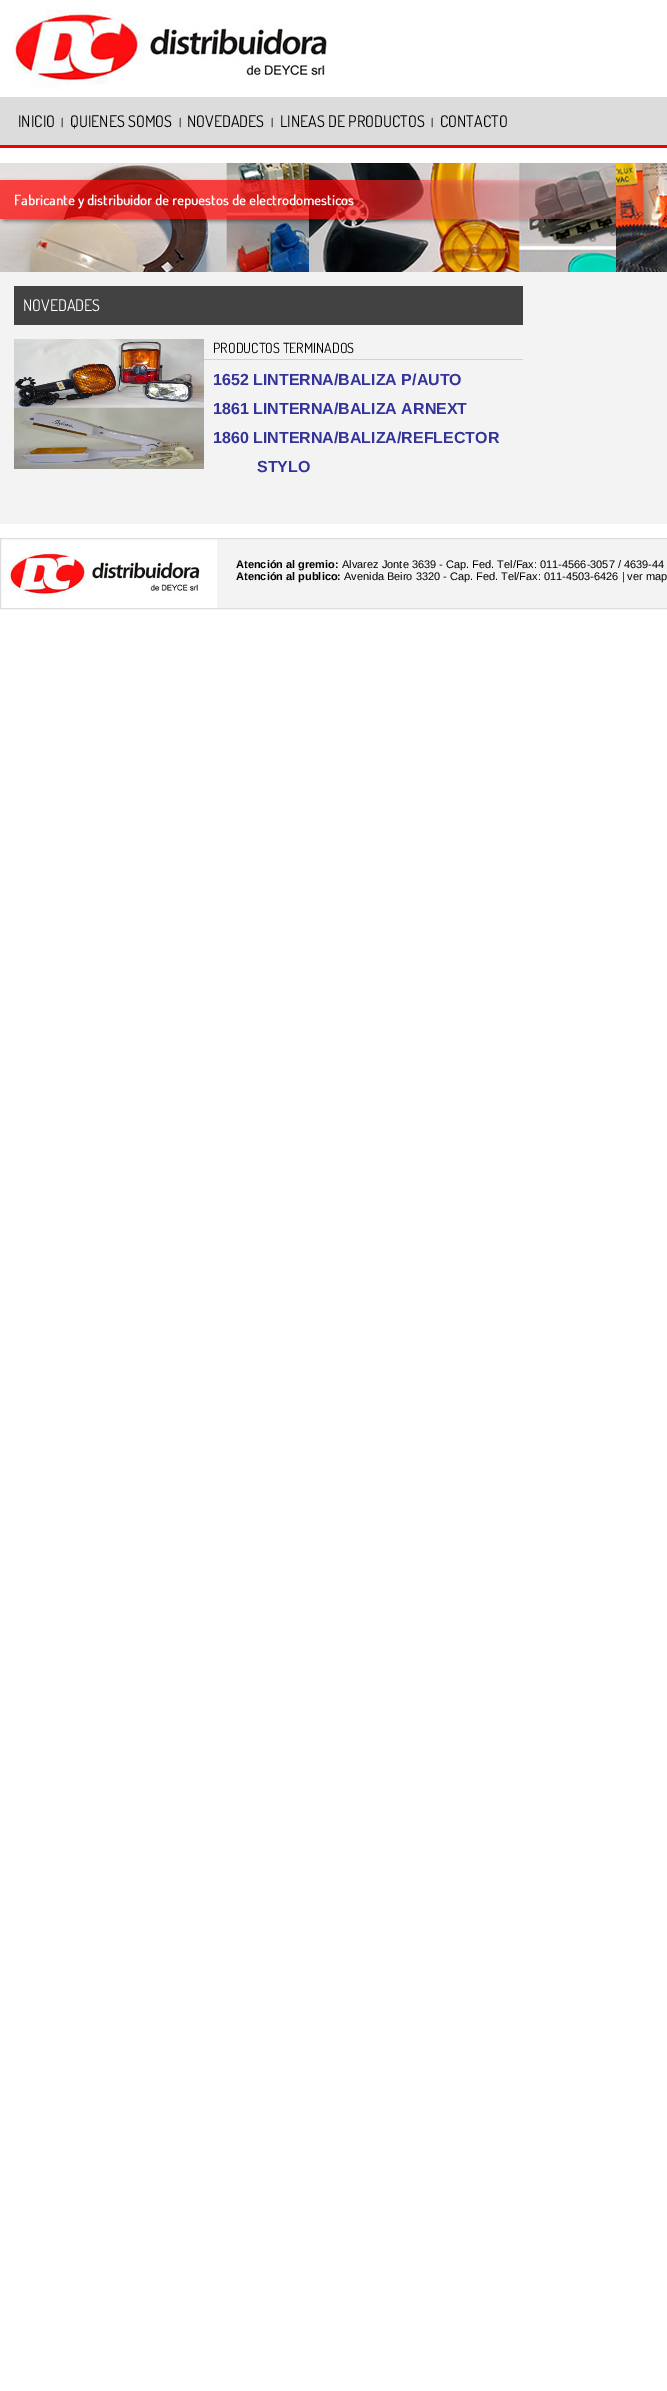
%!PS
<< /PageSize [667 2391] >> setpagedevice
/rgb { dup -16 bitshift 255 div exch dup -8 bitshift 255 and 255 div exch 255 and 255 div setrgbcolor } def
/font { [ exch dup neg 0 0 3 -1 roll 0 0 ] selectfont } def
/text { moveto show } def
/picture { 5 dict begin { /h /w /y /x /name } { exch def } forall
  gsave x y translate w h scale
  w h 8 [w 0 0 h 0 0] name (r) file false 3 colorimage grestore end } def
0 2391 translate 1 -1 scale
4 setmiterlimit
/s1 { /Dosis-Regular 16 font 16#000000 rgb } def
/s2 { /Dosis-Regular 12 font 16#000000 rgb } def
/s3 { /Dosis-Regular 16 font 16#FFFFFF rgb } def
/s4 { /Dosis-Regular 14 font 16#000000 rgb } def
/s5 { /LiberationSans-Bold 16 font 16#333399 rgb } def
/s6 { /LiberationSans-Bold 11 font 16#000000 rgb } def
/s7 { /LiberationSans-Regular 11 font 16#000000 rgb } def
16#FFFFFF rgb
0 0 667 2391 rectfill
(pic1.raw) 9 9 319 81 picture
16#DCDCDC rgb
0 97 667 48 rectfill
16#EC0400 rgb
0 145 667 3 rectfill
s1
(INICIO) 18 127 text
s2
(|) 61 127 text
s1
(QUIENES SOMOS) 70 127 text
s2
(|) 179 127 text
s1
(NOVEDADES) 187 127 text
s2
(|) 271 127 text
s1
(LINEAS DE PRODUCTOS) 280 127 text
s2
(|) 431 127 text
s1
(CONTACTO) 440 127 text
(pic2.raw) 0 162 667 110 picture
16#F3F3F3 rgb
0 272 667 252 rectfill
16#424242 rgb
14 286 509 39 rectfill
s3
(NOVEDADES) 23 311 text
(pic3.raw) 14 339 190 130 picture
16#D2D2D2 rgb
204 359 319 1 rectfill
s4
(PRODUCTOS TERMINADOS) 213 353 text
s5
(1652 LINTERNA/BALIZA P/AUTO) 213 385 text
(1861 LINTERNA/BALIZA ARNEXT) 213 414 text
(1860 LINTERNA/BALIZA/REFLECTOR) 213 443 text
(STYLO) 257 472 text
16#F3F3F3 rgb
217 539 450 69 rectfill
16#DEDEDE rgb
0.5 538.5 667 70 rectstroke
(pic4.raw) 8 550 192 50 picture
s6
(Atención al gremio:) 236 568 text
s7
(Alvarez Jonte 3639 - Cap. Fed. Tel/Fax: 011-4566-3057 / 4639-44) 342 568 text
s6
(Atención al publico:) 236 580 text
s7
(Avenida Beiro 3320 - Cap. Fed. Tel/Fax: 011-4503-6426 | ver map) 344 580 text
showpage
